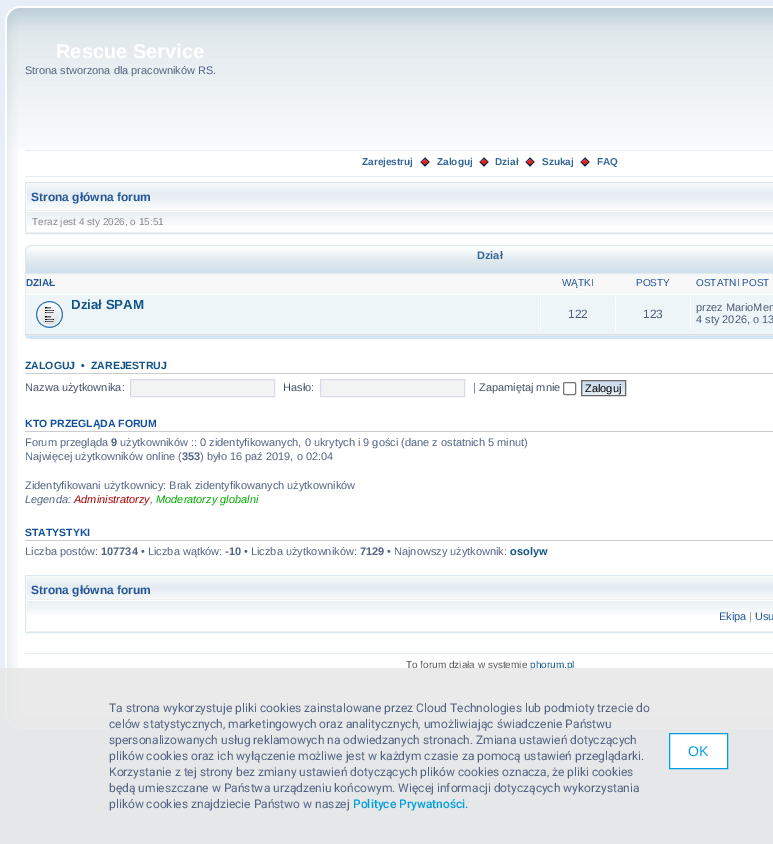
%!PS
<< /PageSize [773 844] /PageUsesTransparency true >> setpagedevice
/rgb { dup -16 bitshift 255 div exch dup -8 bitshift 255 and 255 div exch 255 and 255 div setrgbcolor } def
/font { [ exch dup neg 0 0 3 -1 roll 0 0 ] selectfont } def
/text { moveto show } def
/alpha { dup .setfillconstantalpha .setstrokeconstantalpha } def
/roundrect { 5 dict begin { /r /h /w /y /x } { exch def } forall
  x r add y moveto x w add y 2 copy h add r arct x w add y h add x 1 index r arct
  x y h add x y r arct x y 2 copy exch w add exch r arct closepath end } def
/picture { 5 dict begin { /h /w /y /x /name } { exch def } forall
  gsave x y translate w h scale
  w h 8 [w 0 0 h 0 0] name (r) file false 3 colorimage grestore end } def
0 .pushpdf14devicefilter
0 844 translate 1 -1 scale
4 setmiterlimit
/s1 { /LiberationSans-Bold 20 font 16#FFFFFF rgb } def
/s2 { /LiberationSans-Regular 11 font 16#536482 rgb } def
/s3 { /LiberationSans-Bold 10 font 16#336699 rgb } def
/s4 { /LiberationSans-Bold 12 font 16#225599 rgb } def
/s5 { /LiberationSans-Regular 10 font 16#888888 rgb } def
/s6 { /LiberationSans-Bold 11 font 16#336699 rgb } def
/s7 { /LiberationSans-Bold 10 font 16#225599 rgb } def
/s8 { /LiberationSans-Regular 10 font 16#225599 rgb } def
/s9 { /LiberationSans-Bold 13.25 font 16#115588 rgb } def
/s10 { /LiberationSans-Regular 12 font 16#4C5D77 rgb } def
/s11 { /LiberationSans-Regular 11 font 16#4C5D77 rgb } def
/s12 { /LiberationSans-Bold 10.5 font 16#115588 rgb } def
/s13 { /LiberationSans-Bold 10.5 font 16#115098 rgb } def
/s14 { /LiberationSans-Regular 11 font 16#425067 rgb } def
/s15 { /LiberationSans-Regular 11 font 16#000000 rgb } def
/s16 { /LiberationSans-Bold 11 font 16#536482 rgb } def
/s17 { /LiberationSans-Italic 11 font 16#536482 rgb } def
/s18 { /LiberationSans-Italic 11 font 16#AA0000 rgb } def
/s19 { /LiberationSans-Italic 11 font 16#00AA00 rgb } def
/s20 { /LiberationSans-Bold 11 font 16#115588 rgb } def
/s21 { /LiberationSans-Regular 11 font 16#225599 rgb } def
/s22 { /LiberationSans-Regular 11 font 16#888888 rgb } def
/s23 { /LiberationSans-Regular 10 font 16#555555 rgb } def
/s24 { /LiberationSans-Regular 10 font 16#115588 rgb } def
/s25 { /Roboto-Regular 12 font 16#536482 rgb } def
/s26 { /Roboto-Medium 12 font 16#009FDF rgb } def
/s27 { /LiberationSans-Regular 14 font 16#009FDF rgb } def
16#E8EEF8 rgb
0 0 773 844 rectfill
16#FFFFFF rgb
18 150 755 564 rectfill
(pic1.raw) 0 150 18 564 picture
(pic2.raw) 0 0 773 150 picture
(pic3.raw) 0 6 19 144 picture
(pic4.raw) 0 714 773 20 picture
(pic5.raw) 0 714 19 15 picture
s1
(Rescue Service) 56 58 text
s2
(Strona stworzona dla pracowników RS.) 25 74 text
16#E8EEF8 rgb
25 150 748 1 rectfill
25 176 748 1 rectfill
s3
(Zarejestruj) 362 165 text
(pic6.raw) 420 157 10 10 picture
(Zaloguj) 437 165 text
(pic6.raw) 479 157 10 10 picture
(Dział) 495 165 text
(pic6.raw) 525 157 10 10 picture
(Szukaj) 542 165 text
(pic6.raw) 580 157 10 10 picture
(FAQ) 597 165 text
16#DDE8EE rgb
25.5 182.5 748 51 rectstroke
(pic7.raw) 27 184 746 26 picture
16#EEEEEE rgb
26 210 747 1 rectfill
16#FFFFFF rgb
26 210 1 1 rectfill
s4
(Strona główna forum) 31 201 text
(pic8.raw) 27 212 746 14 picture
16#EEEEEE rgb
26 232 747 1 rectfill
16#FFFFFF rgb
26 232 1 1 rectfill
s5
(Teraz jest 4 sty 2026, o 15:51) 32 225 text
(pic9.raw) 25 245 27 28 picture
(pic10.raw) 52 245 721 28 picture
s6
(Dział) 477 259 text
16#F8F8F8 rgb
26 274 747 20 rectfill
16#E3EBF0 rgb
25.5 273.5 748 62 rectstroke
s7
(DZIAŁ) 26 286 text
s8
(WĄTKI) 562 286 text
(POSTY) 636 286 text
(OSTATNI POST) 696 286 text
16#EEF5F9 rgb
26 295 747 39 rectfill
16#DDDDDD rgb
26 334 747 1 rectfill
(pic11.raw) 36 301 27 27 picture
s9
(Dział SPAM) 71 309 text
16#FFFFFF rgb
540 297 1 34 rectfill
s10
(122) 568 318 text
16#FFFFFF rgb
615 297 1 34 rectfill
s10
(123) 643 318 text
16#FFFFFF rgb
690 297 1 32 rectfill
s11
(przez MarioMen) 696 311 text
(4 sty 2026, o 13) 696 323 text
(pic12.raw) 25 336 4 3 picture
16#D1E5F5 rgb
29 336 744 3 rectfill
16#CCCCCC rgb
25 373 748 1 rectfill
s12
(ZALOGUJ) 25 369 text
s13
(•) 81 369 text
s12
(ZAREJESTRUJ) 91 369 text
s14
(Nazwa użytkownika:) 25 391 text
16#F2F3F3 rgb
130.5 379.5 moveto 274.5 379.5 lineto 274.5 396.5 lineto 130.5 396.5 lineto closepath gsave fill grestore
16#DDD8EE rgb
stroke
s14
(Hasło:) 283 391 text
16#F2F3F3 rgb
320.5 379.5 moveto 464.5 379.5 lineto 464.5 396.5 lineto 320.5 396.5 lineto closepath gsave fill grestore
16#DDD8EE rgb
stroke
s2
(|) 473 391 text
s14
(Zapamiętaj mnie) 479 391 text
16#767676 rgb
563.5 382.5 12 12 1.5 roundrect stroke
(pic13.raw) 582 381 43 14 picture
16#666666 rgb
581.5 380.5 44 15 rectstroke
s15
(Zaloguj) 585 392 text
16#CCCCCC rgb
25 431 748 1 rectfill
s13
(KTO PRZEGLĄDA FORUM) 25 427 text
s2
(Forum przegląda) 25 446 text
s16
(9) 111 446 text
s2
(użytkowników :: 0 zidentyfikowanych, 0 ukrytych i 9 gości \(dane z ostatnich 5 minut\)) 120 446 text
(Najwięcej użytkowników online \() 25 460 text
s16
(353) 182 460 text
s2
(\) było 16 paź 2019, o 02:04) 200 460 text
(Zidentyfikowani użytkownicy: Brak zidentyfikowanych użytkowników) 25 489 text
s17
(Legenda:) 25 503 text
s18
(Administratorzy) 74 503 text
s19
(Moderatorzy globalni) 156 503 text
s17
(,) 150 503 text
16#CCCCCC rgb
25 540 748 1 rectfill
s13
(STATYSTYKI) 25 536 text
s2
(Liczba postów:) 25 555 text
s16
(107734) 101 555 text
s2
(• Liczba wątków:) 141 555 text
s16
(-10) 225 555 text
s2
(• Liczba użytkowników:) 244 555 text
s16
(7129) 360 555 text
s2
(• Najnowszy użytkownik:) 387 555 text
s20
(osolyw) 510 555 text
16#DDE8EE rgb
25.5 575.5 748 57 rectstroke
(pic14.raw) 27 577 746 22 picture
16#EEEEEE rgb
26 599 747 1 rectfill
16#FFFFFF rgb
26 599 1 1 rectfill
s4
(Strona główna forum) 31 594 text
(pic8.raw) 27 601 746 14 picture
16#EEEEEE rgb
26 631 747 1 rectfill
16#FFFFFF rgb
26 631 1 1 rectfill
s21
(Ekipa) 719 620 text
s22
(|) 749 620 text
s21
(Usu) 755 620 text
16#E8EEF8 rgb
25 653 748 1 rectfill
s23
(To forum działa w systemie) 406 668 text
s24
(phorum.pl) 530 668 text
0.8 alpha
16#E5E5E5 rgb
0 668 773 176 rectfill
1 alpha
s25
(Ta strona wykorzystuje pliki cookies zainstalowane przez Cloud Technologies lub podmioty trzecie do) 109 712 text
(celów statystycznych, marketingowych oraz analitycznych, umożliwiając świadczenie Państwu) 109 728 text
(spersonalizowanych usług reklamowych na odwiedzanych stronach. Zmiana ustawień dotyczących) 109 744 text
(plików cookies oraz ich wyłączenie możliwe jest w każdym czasie za pomocą ustawień przeglądarki.) 109 760 text
(Korzystanie z tej strony bez zmiany ustawień dotyczących plików cookies oznacza, że pliki cookies) 109 776 text
(będą umieszczane w Państwa urządzeniu końcowym. Więcej informacji dotyczących wykorzystania) 109 792 text
(plików cookies znajdziecie Państwo w naszej) 109 808 text
s26
(Polityce Prywatności.) 353 808 text
16#FFFFFF rgb
669.5 733.5 moveto 727.5 733.5 lineto 727.5 768.5 lineto 669.5 768.5 lineto closepath gsave fill grestore
16#009FDF rgb
stroke
s27
(OK) 688 756 text
.poppdf14devicefilter showpage
